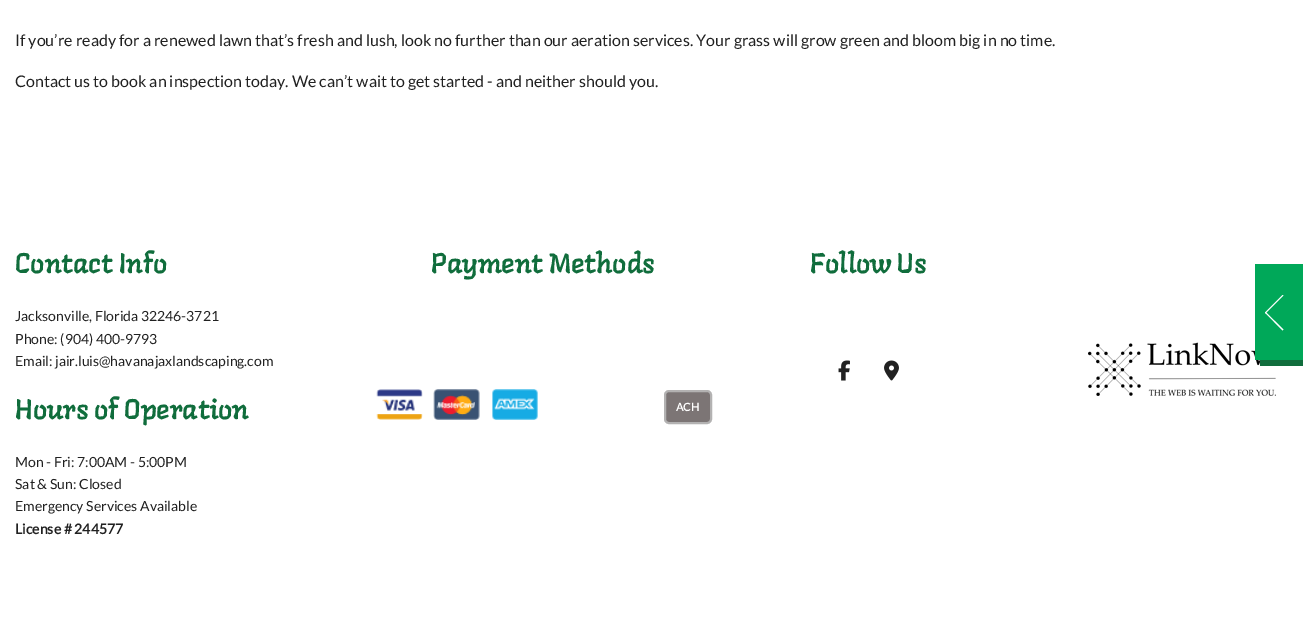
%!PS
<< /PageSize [1303 624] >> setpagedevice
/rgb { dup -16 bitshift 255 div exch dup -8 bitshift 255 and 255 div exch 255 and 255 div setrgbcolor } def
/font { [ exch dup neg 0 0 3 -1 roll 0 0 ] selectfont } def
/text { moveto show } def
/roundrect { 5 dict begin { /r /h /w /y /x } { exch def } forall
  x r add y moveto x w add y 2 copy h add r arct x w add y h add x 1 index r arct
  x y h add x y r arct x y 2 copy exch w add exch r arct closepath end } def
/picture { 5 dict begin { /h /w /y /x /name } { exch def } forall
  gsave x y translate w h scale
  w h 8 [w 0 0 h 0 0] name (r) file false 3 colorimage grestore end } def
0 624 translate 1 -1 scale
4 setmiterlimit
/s1 { /Lato-Regular 16 font 16#212121 rgb } def
/s2 { /Langar-Regular 28 font 16#106D3C rgb } def
/s3 { /Lato-Regular 14 font 16#212121 rgb } def
/s4 { /Lato-Bold 14 font 16#212121 rgb } def
/s5 { /Lato-Bold 11 font 16#FFFFFF rgb } def
16#FFFFFF rgb
0 0 1303 624 rectfill
s1
(If you’re ready for a renewed lawn that’s fresh and lush, look no further than our aeration services. Your grass will grow green and bloom big in no time.) 15 46 text
(Contact us to book an inspection today. We can’t wait to get started - and neither should you.) 15 87 text
s2
(Contact Info) 15 273 text
s3
(Jacksonville, Florida 32246-3721) 15 321 text
(Phone: \(904\) 400-9793) 15 344 text
(Email: jair.luis@havanajaxlandscaping.com) 15 366 text
s2
(Hours of Operation) 15 419 text
s3
(Mon - Fri: 7:00AM - 5:00PM) 15 467 text
(Sat & Sun: Closed) 15 489 text
(Emergency Services Available) 15 511 text
s4
(License # 244577) 15 534 text
s2
(Payment Methods) 431 273 text
(pic1.raw) 376 389 47 31 picture
(pic2.raw) 433 389 47 31 picture
(pic3.raw) 492 389 46 31 picture
16#7C7575 rgb
665 391 46 32 4 roundrect gsave fill grestore
16#B3B2B2 rgb
2 setlinewidth
stroke
s5
(ACH) 676 411 text
s2
(Follow Us) 810 273 text
(pic4.raw) 838 360 12 21 picture
(pic5.raw) 884 360 15 21 picture
(pic6.raw) 1088 342 188 54 picture
1260 360 moveto 1260 366 lineto 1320 366 lineto 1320 270 lineto 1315 270 lineto 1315 360 lineto closepath fill
16#00A859 rgb
1255 264 48 96 rectfill
16#FFFFFF rgb
1265 312.5 moveto 1282.5 295 lineto 1283.5 295.5 lineto 1265.5 313.5 lineto closepath fill
1265 312.5 moveto 1265.5 312 lineto 1283.5 329.5 lineto 1282.5 330.5 lineto closepath fill
showpage
